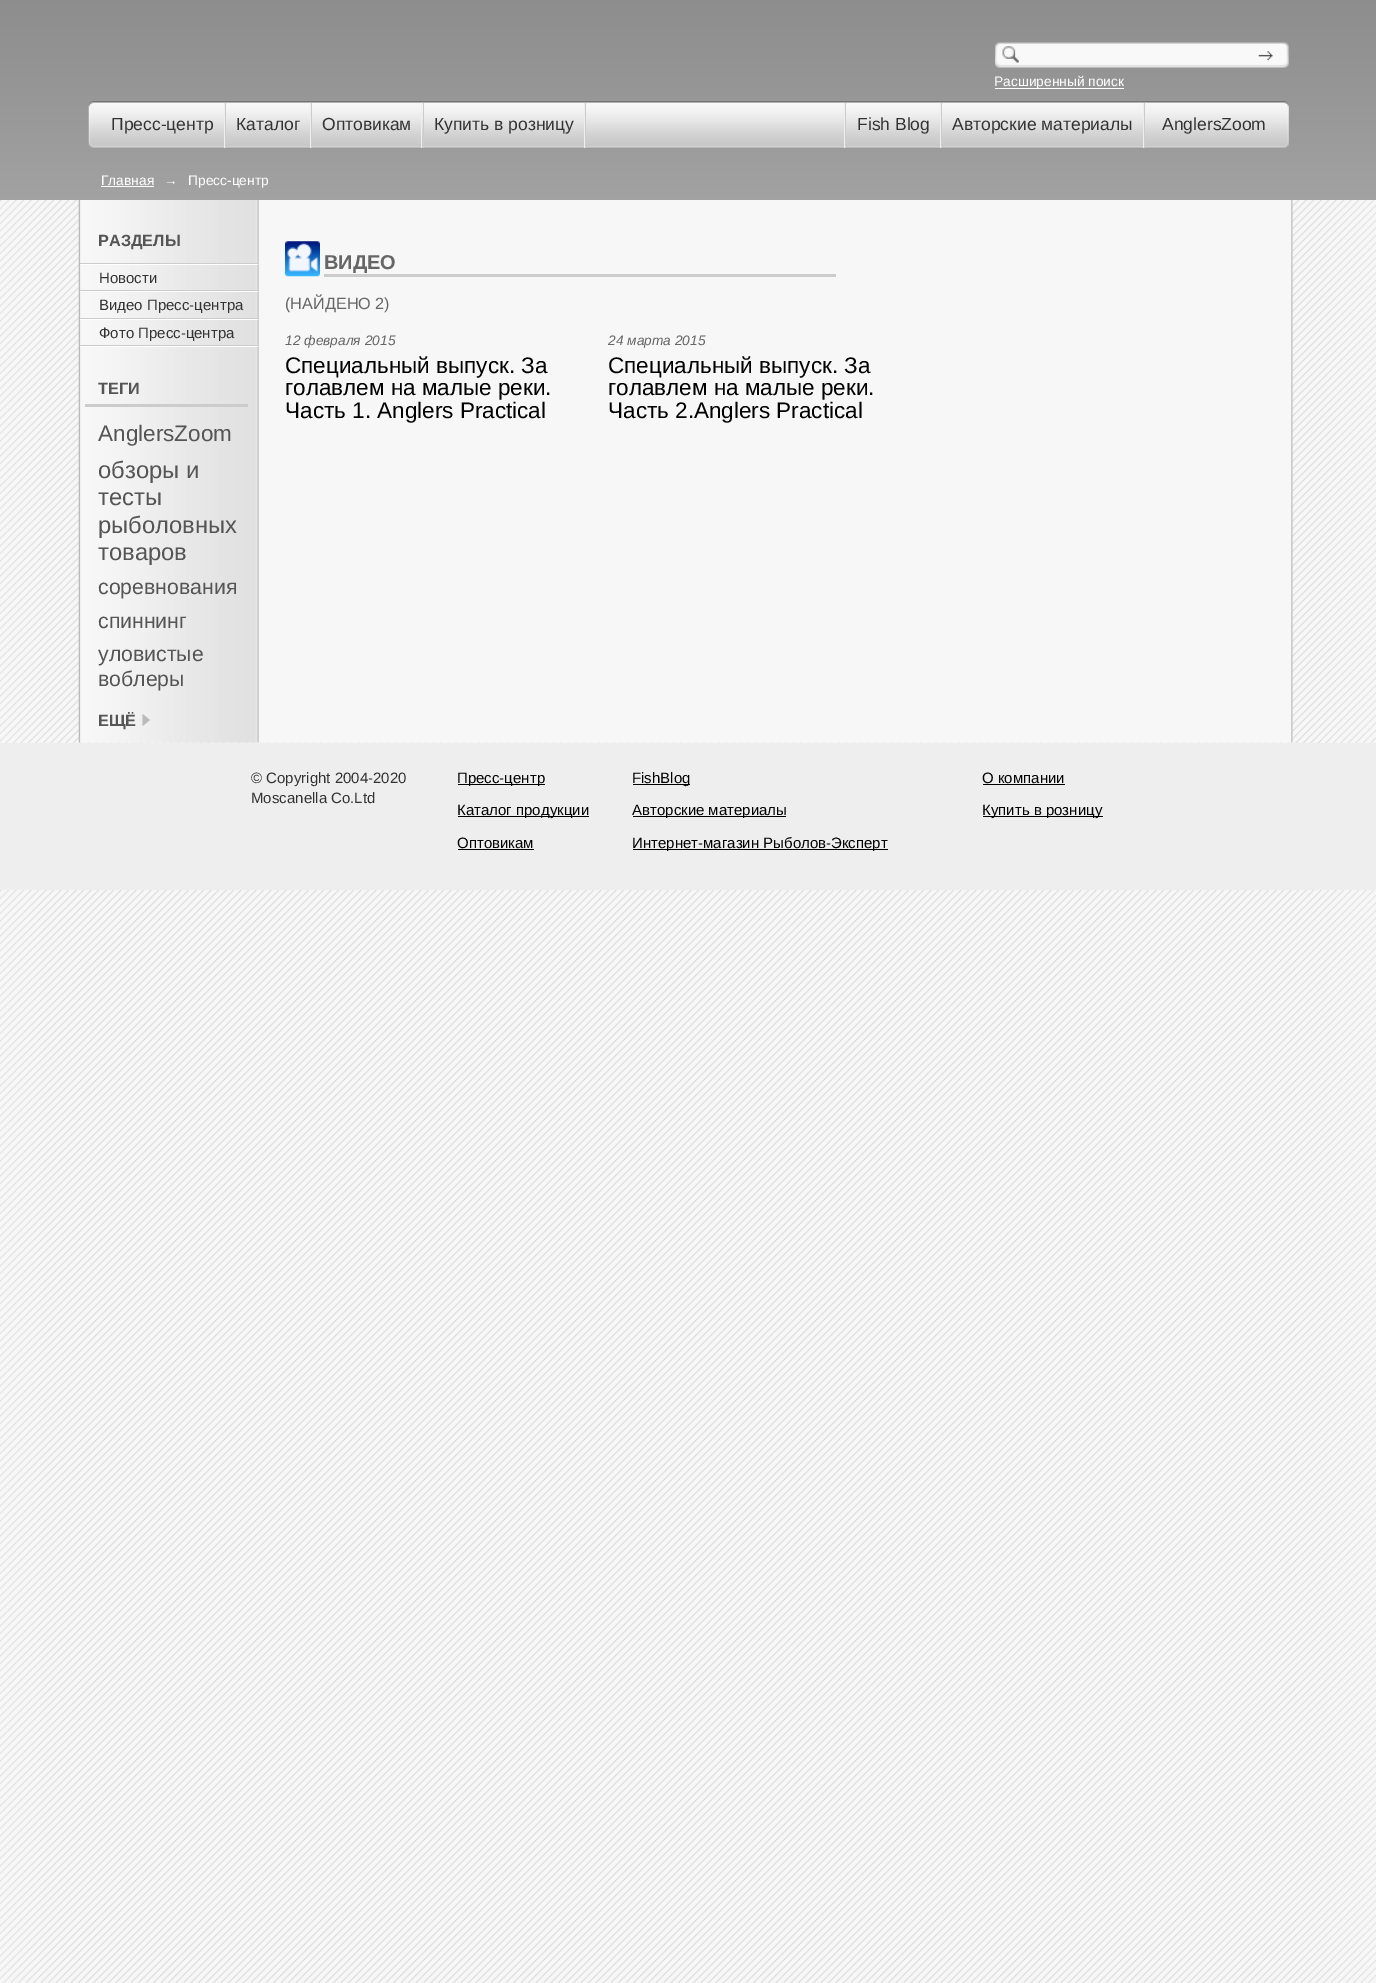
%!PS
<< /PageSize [1376 1983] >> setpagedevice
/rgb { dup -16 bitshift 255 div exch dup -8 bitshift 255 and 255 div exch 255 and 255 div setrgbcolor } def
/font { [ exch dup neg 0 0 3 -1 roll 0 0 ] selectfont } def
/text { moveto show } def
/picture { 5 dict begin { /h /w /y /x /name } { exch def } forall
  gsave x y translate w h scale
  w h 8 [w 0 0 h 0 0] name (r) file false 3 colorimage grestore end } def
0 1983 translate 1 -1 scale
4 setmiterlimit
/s1 { /LiberationSans-Regular 13.75 font 16#FFFFFF rgb } def
/s2 { /LiberationSans-Regular 17.5 font 16#333333 rgb } def
/s3 { /LiberationSans-Bold 16.25 font 16#555555 rgb } def
/s4 { /LiberationSans-Regular 15 font 16#333333 rgb } def
/s5 { /LiberationSans-Regular 22.5 font 16#555555 rgb } def
/s6 { /LiberationSans-Regular 23.75 font 16#555555 rgb } def
/s7 { /LiberationSans-Regular 21.25 font 16#555555 rgb } def
/s8 { /LiberationSans-Bold 20 font 16#666666 rgb } def
/s9 { /LiberationSans-Regular 16.25 font 16#666666 rgb } def
/s10 { /LiberationSans-Italic 13.75 font 16#666666 rgb } def
/s11 { /LiberationSans-Regular 22.5 font 16#000000 rgb } def
/s12 { /LiberationSans-Regular 15 font 16#000000 rgb } def
16#FFFFFF rgb
0 0 1376 1983 rectfill
(pic1.raw) 0 200 1376 1783 picture
(pic2.raw) 0 0 1376 200 picture
(pic3.raw) 995 42 294 26 picture
995 88 129 1 rectfill
s1
(Расширенный поиск) 994 86 text
(pic4.raw) 88 101 1201 47 picture
s2
(Пресс-центр) 111 130 text
16#CCCCCC rgb
225 103 1 45 rectfill
16#EEEEEE rgb
224 103 1 45 rectfill
s2
(Каталог) 236 130 text
16#CCCCCC rgb
311 103 1 45 rectfill
16#EEEEEE rgb
310 103 1 45 rectfill
s2
(Оптовикам) 322 130 text
16#CCCCCC rgb
423 103 1 45 rectfill
16#EEEEEE rgb
421 103 1 45 rectfill
s2
(Купить в розницу) 434 130 text
16#CCCCCC rgb
585 103 1 45 rectfill
16#EEEEEE rgb
584 103 1 45 rectfill
16#CCCCCC rgb
845 103 1 45 rectfill
16#EEEEEE rgb
844 103 1 45 rectfill
s2
(Fish Blog) 857 130 text
16#CCCCCC rgb
941 103 1 45 rectfill
16#EEEEEE rgb
940 103 1 45 rectfill
s2
(Авторские материалы) 952 130 text
16#CCCCCC rgb
1144 103 1 45 rectfill
16#EEEEEE rgb
1143 103 1 45 rectfill
s2
(AnglersZoom) 1162 130 text
s1
(Главная) 101 185 text
101 186 53 1 rectfill
(→) 164 185 text
(Пресс-центр) 188 185 text
(pic5.raw) 78 200 1215 543 picture
s3
(РАЗДЕЛЫ) 98 246 text
16#CCCCCC rgb
80 263 178 1 rectfill
16#FFFFFF rgb
80 264 178 1 rectfill
16#CCCCCC rgb
80 290 178 1 rectfill
s4
(Новости) 99 283 text
16#FFFFFF rgb
80 291 178 1 rectfill
16#CCCCCC rgb
80 318 178 1 rectfill
s4
(Видео Пресс-центра) 99 310 text
16#FFFFFF rgb
80 319 178 1 rectfill
16#CCCCCC rgb
80 345 178 1 rectfill
s4
(Фото Пресс-центра) 99 338 text
16#FFFFFF rgb
80 346 178 1 rectfill
16#CCCCCC rgb
85 404 163 3 rectfill
s3
(ТЕГИ) 98 394 text
s5
(AnglersZoom) 98 441 text
s6
(обзоры и) 98 478 text
(тесты) 98 505 text
(рыболовных) 98 533 text
(товаров) 98 560 text
s7
(соревнования) 98 594 text
(спиннинг) 98 628 text
(уловистые) 98 661 text
(воблеры) 98 686 text
s3
(ЕЩЁ) 98 726 text
16#BABABA rgb
142.5 726 moveto 142.5 714 lineto 150 720 lineto closepath fill
(pic6.raw) 285 241 35 36 picture
16#CCCCCC rgb
324 274 512 3 rectfill
s8
(ВИДЕО) 324 269 text
s9
(\(НАЙДЕНО 2\)) 285 309 text
s10
(12 февраля 2015) 285 345 text
s11
(Специальный выпуск. За) 285 373 text
(голавлем на малые реки.) 285 395 text
(Часть 1. Anglers Practical) 285 418 text
s10
(24 марта 2015) 608 345 text
s11
(Специальный выпуск. За) 608 373 text
(голавлем на малые реки.) 608 395 text
(Часть 2.Anglers Practical) 608 418 text
16#EEEEEE rgb
0 743 1376 147 rectfill
s4
(© Copyright 2004-2020) 251 783 text
(Moscanella Co.Ltd) 251 803 text
16#000000 rgb
458 784 87 1 rectfill
(Пресс-центр) 457 783 text
458 816 131 1 rectfill
(Каталог продукции) 457 815 text
(Оптовикам) 457 848 text
458 849 76 1 rectfill
633 784 57 1 rectfill
(FishBlog) 632 783 text
633 816 153 1 rectfill
(Авторские материалы) 632 815 text
633 849 255 1 rectfill
(Интернет-магазин Рыболов-Эксперт) 632 848 text
(О компании) 982 783 text
983 784 82 1 rectfill
983 816 120 1 rectfill
(Купить в розницу) 982 815 text
showpage
